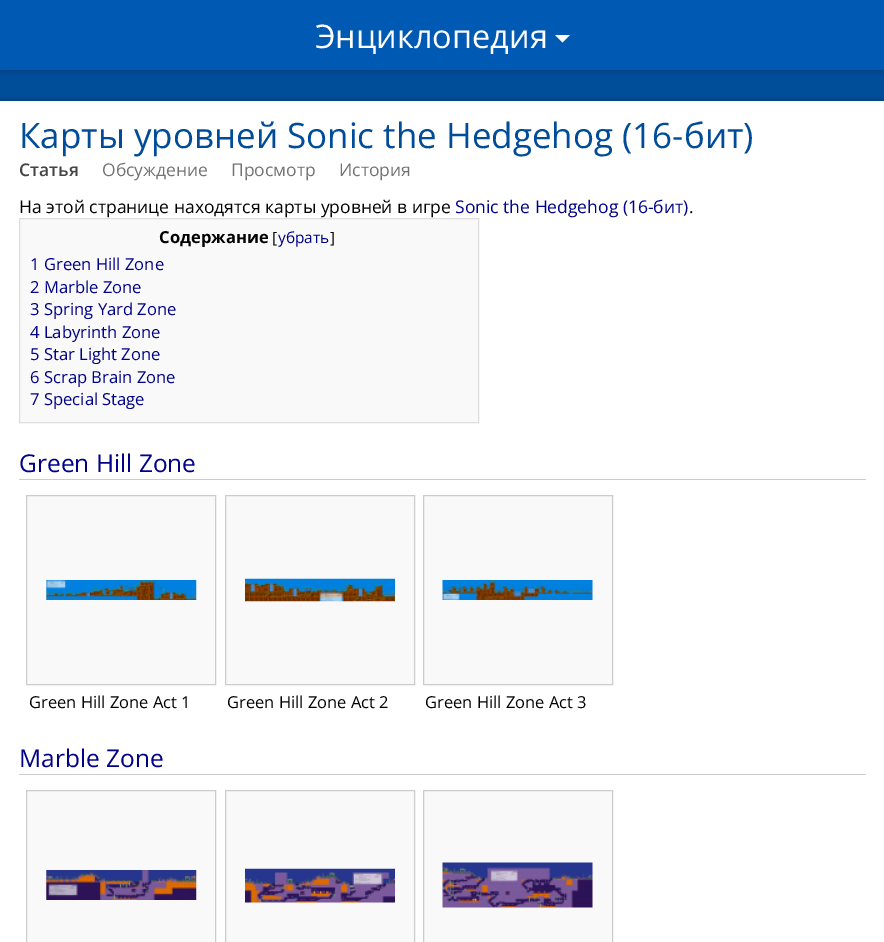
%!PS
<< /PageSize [884 942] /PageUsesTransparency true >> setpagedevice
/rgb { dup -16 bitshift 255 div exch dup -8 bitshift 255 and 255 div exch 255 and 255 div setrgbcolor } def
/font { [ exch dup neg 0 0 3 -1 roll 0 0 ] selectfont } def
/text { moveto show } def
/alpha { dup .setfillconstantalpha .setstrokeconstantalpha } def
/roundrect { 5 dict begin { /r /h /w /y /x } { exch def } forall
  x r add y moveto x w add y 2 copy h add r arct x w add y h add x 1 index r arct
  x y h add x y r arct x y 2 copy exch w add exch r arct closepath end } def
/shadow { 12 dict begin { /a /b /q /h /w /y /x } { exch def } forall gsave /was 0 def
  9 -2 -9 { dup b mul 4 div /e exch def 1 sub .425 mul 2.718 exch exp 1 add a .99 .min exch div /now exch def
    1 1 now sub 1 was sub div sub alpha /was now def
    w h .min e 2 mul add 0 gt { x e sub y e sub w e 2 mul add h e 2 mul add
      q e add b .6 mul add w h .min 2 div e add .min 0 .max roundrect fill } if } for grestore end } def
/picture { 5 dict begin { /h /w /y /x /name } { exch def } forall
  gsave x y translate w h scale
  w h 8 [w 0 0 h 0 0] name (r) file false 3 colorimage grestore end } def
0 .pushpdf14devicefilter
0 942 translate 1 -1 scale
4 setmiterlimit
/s1 { /OpenSans-Regular 32.5 font 16#FFFFFF rgb } def
/s2 { /OpenSans-Regular 35 font 16#004C99 rgb } def
/s3 { /OpenSans-SemiBold 17.5 font 16#444444 rgb } def
/s4 { /OpenSans-Regular 17.5 font 16#737373 rgb } def
/s5 { /OpenSans-Regular 17.5 font 16#000000 rgb } def
/s6 { /OpenSans-Regular 17.5 font 16#000088 rgb } def
/s7 { /OpenSans-Bold 16.6 font 16#000000 rgb } def
/s8 { /OpenSans-Regular 15.5 font 16#000000 rgb } def
/s9 { /OpenSans-Regular 15.5 font 16#000088 rgb } def
/s10 { /OpenSans-Regular 16.6 font 16#000088 rgb } def
/s11 { /OpenSans-Regular 24.5 font 16#000088 rgb } def
/s12 { /OpenSans-Regular 16.5 font 16#000000 rgb } def
16#004D99 rgb
0 0 884 942 rectfill
16#000000 rgb
0 0 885 70 0 3 0.25 shadow
16#0059B3 rgb
0 0 884 70 rectfill
s1
(Энциклопедия) 315 48 text
555 35 moveto 562.5 42.5 lineto 570 35 lineto closepath fill
16#000000 rgb
0 101 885 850 0 3 0.25 shadow
16#FFFFFF rgb
0 101 884 841 rectfill
s2
(Карты уровней Sonic the Hedgehog \(16-бит\)) 19 148 text
s3
(Статья) 19 176 text
s4
(Обсуждение) 102 176 text
(Просмотр) 231 176 text
(История) 339 176 text
s5
(На этой странице находятся карты уровней в игре) 19 213 text
s6
(Sonic the Hedgehog \(16-бит\)) 455 213 text
s5
(.) 689 213 text
16#F9F9F9 rgb
19.5 218.5 moveto 478.5 218.5 lineto 478.5 422.5 lineto 19.5 422.5 lineto closepath gsave fill grestore
16#DDDDDD rgb
stroke
s7
(Содержание) 159 243 text
s8
([) 272 243 text
s9
(убрать) 278 243 text
s8
(]) 330 243 text
s10
(1 Green Hill Zone) 30 270 text
(2 Marble Zone) 30 293 text
(3 Spring Yard Zone) 30 315 text
(4 Labyrinth Zone) 30 338 text
(5 Star Light Zone) 30 360 text
(6 Scrap Brain Zone) 30 383 text
(7 Special Stage) 30 405 text
16#CCCCCC rgb
19 479 847 1 rectfill
s11
(Green Hill Zone) 19 472 text
16#F9F9F9 rgb
26.5 495.5 moveto 215.5 495.5 lineto 215.5 684.5 lineto 26.5 684.5 lineto closepath gsave fill grestore
16#CCCCCC rgb
stroke
(pic1.raw) 46 580 151 20 picture
s12
(Green Hill Zone Act 1) 29 708 text
16#F9F9F9 rgb
225.5 495.5 moveto 414.5 495.5 lineto 414.5 684.5 lineto 225.5 684.5 lineto closepath gsave fill grestore
16#CCCCCC rgb
stroke
(pic2.raw) 245 578 150 24 picture
s12
(Green Hill Zone Act 2) 227 708 text
16#F9F9F9 rgb
423.5 495.5 moveto 612.5 495.5 lineto 612.5 684.5 lineto 423.5 684.5 lineto closepath gsave fill grestore
16#CCCCCC rgb
stroke
(pic3.raw) 442 580 151 20 picture
s12
(Green Hill Zone Act 3) 425 708 text
16#CCCCCC rgb
19 774 847 1 rectfill
s11
(Marble Zone) 19 767 text
16#F9F9F9 rgb
26.5 790.5 moveto 215.5 790.5 lineto 215.5 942.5 lineto 26.5 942.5 lineto closepath gsave fill grestore
16#CCCCCC rgb
stroke
(pic4.raw) 46 870 151 30 picture
16#F9F9F9 rgb
225.5 790.5 moveto 414.5 790.5 lineto 414.5 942.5 lineto 225.5 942.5 lineto closepath gsave fill grestore
16#CCCCCC rgb
stroke
(pic5.raw) 245 868 150 35 picture
16#F9F9F9 rgb
423.5 790.5 moveto 612.5 790.5 lineto 612.5 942.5 lineto 423.5 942.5 lineto closepath gsave fill grestore
16#CCCCCC rgb
stroke
(pic6.raw) 442 862 151 46 picture
.poppdf14devicefilter showpage
